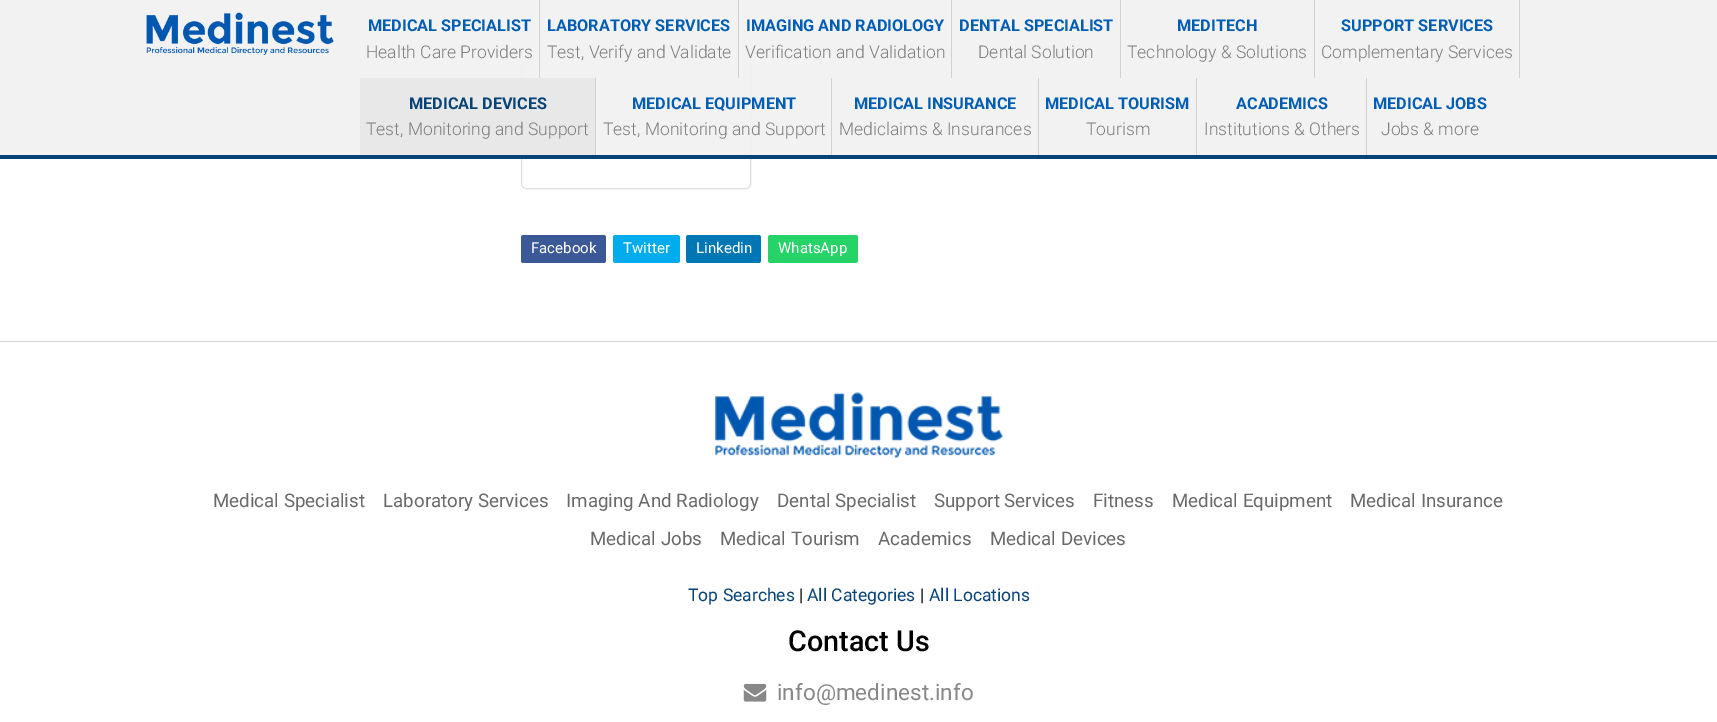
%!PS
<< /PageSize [1717 722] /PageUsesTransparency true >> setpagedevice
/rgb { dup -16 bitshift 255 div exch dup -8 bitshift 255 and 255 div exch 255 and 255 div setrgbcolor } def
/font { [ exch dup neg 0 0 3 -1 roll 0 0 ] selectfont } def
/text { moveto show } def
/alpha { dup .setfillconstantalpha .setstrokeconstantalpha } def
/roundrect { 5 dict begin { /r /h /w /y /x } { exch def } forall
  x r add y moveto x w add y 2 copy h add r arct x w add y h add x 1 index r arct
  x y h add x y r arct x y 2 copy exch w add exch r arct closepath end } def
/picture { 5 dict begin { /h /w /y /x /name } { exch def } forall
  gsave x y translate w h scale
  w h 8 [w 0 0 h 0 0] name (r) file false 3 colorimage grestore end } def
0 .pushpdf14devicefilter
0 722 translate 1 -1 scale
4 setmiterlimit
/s1 { /Roboto-Bold 16.25 font 16#015DB3 rgb } def
/s2 { /Roboto-Light 17.5 font 16#7E7E7E rgb } def
/s3 { /Roboto-Bold 16.25 font 16#074376 rgb } def
/s4 { /Roboto-Regular 15 font 16#FFFFFF rgb } def
/s5 { /Roboto-Regular 18.75 font 16#6A6969 rgb } def
/s6 { /Roboto-Regular 17.5 font 16#074376 rgb } def
/s7 { /Roboto-Regular 17.5 font 16#000000 rgb } def
/s8 { /Roboto-Medium 28.75 font 16#000000 rgb } def
/s9 { /Roboto-Regular 22.5 font 16#888888 rgb } def
16#FFFFFF rgb
0 0 1717 722 rectfill
16#DDDDDD rgb
521.5 -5.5 229 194 4.5 roundrect stroke
16#FFFFFF rgb
521 0 230 63 rectfill
0.9 alpha
16#F1F1F1 rgb
0 0 1717 155 rectfill
1 alpha
16#074377 rgb
0 155 1717 4 rectfill
(pic1.raw) 146 12 188 43 picture
16#D1D1D1 rgb
539 0 1 78 rectfill
s1
(MEDICAL SPECIALIST) 368 31 text
s2
(Health Care Providers) 366 58 text
16#D1D1D1 rgb
738 0 1 78 rectfill
s1
(LABORATORY SERVICES) 547 31 text
s2
(Test, Verify and Validate) 547 58 text
16#D1D1D1 rgb
951 0 1 78 rectfill
s1
(IMAGING AND RADIOLOGY) 746 31 text
s2
(Verification and Validation) 745 58 text
16#D1D1D1 rgb
1120 0 1 78 rectfill
s1
(DENTAL SPECIALIST) 959 31 text
s2
(Dental Solution) 978 58 text
16#D1D1D1 rgb
1314 0 1 78 rectfill
s1
(MEDITECH) 1177 31 text
s2
(Technology & Solutions) 1127 58 text
16#D1D1D1 rgb
1519 0 1 78 rectfill
s1
(SUPPORT SERVICES) 1341 31 text
s2
(Complementary Services) 1321 58 text
16#E8E8E8 rgb
360 78 235 77 rectfill
16#D1D1D1 rgb
595 78 1 77 rectfill
s3
(MEDICAL DEVICES) 409 109 text
s2
(Test, Monitoring and Support) 366 135 text
16#D1D1D1 rgb
831 78 1 77 rectfill
s1
(MEDICAL EQUIPMENT) 632 109 text
s2
(Test, Monitoring and Support) 603 135 text
16#D1D1D1 rgb
1038 78 1 77 rectfill
s1
(MEDICAL INSURANCE) 854 109 text
s2
(Mediclaims & Insurances) 839 135 text
16#D1D1D1 rgb
1196 78 1 77 rectfill
s1
(MEDICAL TOURISM) 1045 109 text
s2
(Tourism) 1086 135 text
16#D1D1D1 rgb
1366 78 1 77 rectfill
s1
(ACADEMICS) 1236 109 text
s2
(Institutions & Others) 1204 135 text
s1
(MEDICAL JOBS) 1373 109 text
s2
(Jobs & more) 1381 135 text
16#3B5997 rgb
521 235 85 28 2.5 roundrect fill
s4
(Facebook) 531 253 text
16#00ACED rgb
613 235 67 28 2.5 roundrect fill
s4
(Twitter) 623 253 text
16#0077B5 rgb
686 235 75 28 2.5 roundrect fill
s4
(Linkedin) 696 253 text
16#25D366 rgb
768 235 90 28 2.5 roundrect fill
s4
(WhatsApp) 778 253 text
16#D6D6D6 rgb
0 341 1717 1 rectfill
(pic2.raw) 715 392 288 66 picture
s5
(Medical Specialist) 213 507 text
(Laboratory Services) 383 507 text
(Imaging And Radiology) 566 507 text
(Dental Specialist) 777 507 text
(Support Services) 934 507 text
(Fitness) 1093 507 text
(Medical Equipment) 1172 507 text
(Medical Insurance) 1350 507 text
(Medical Jobs) 590 545 text
(Medical Tourism) 720 545 text
(Academics) 878 545 text
(Medical Devices) 990 545 text
s6
(Top Searches) 688 601 text
s7
(|) 799 601 text
s6
(All Categories) 807 601 text
s7
(|) 920 601 text
s6
(All Locations) 929 601 text
s8
(Contact Us) 788 651 text
(pic3.raw) 743 683 24 19 picture
s9
(info@medinest.info) 777 700 text
.poppdf14devicefilter showpage
